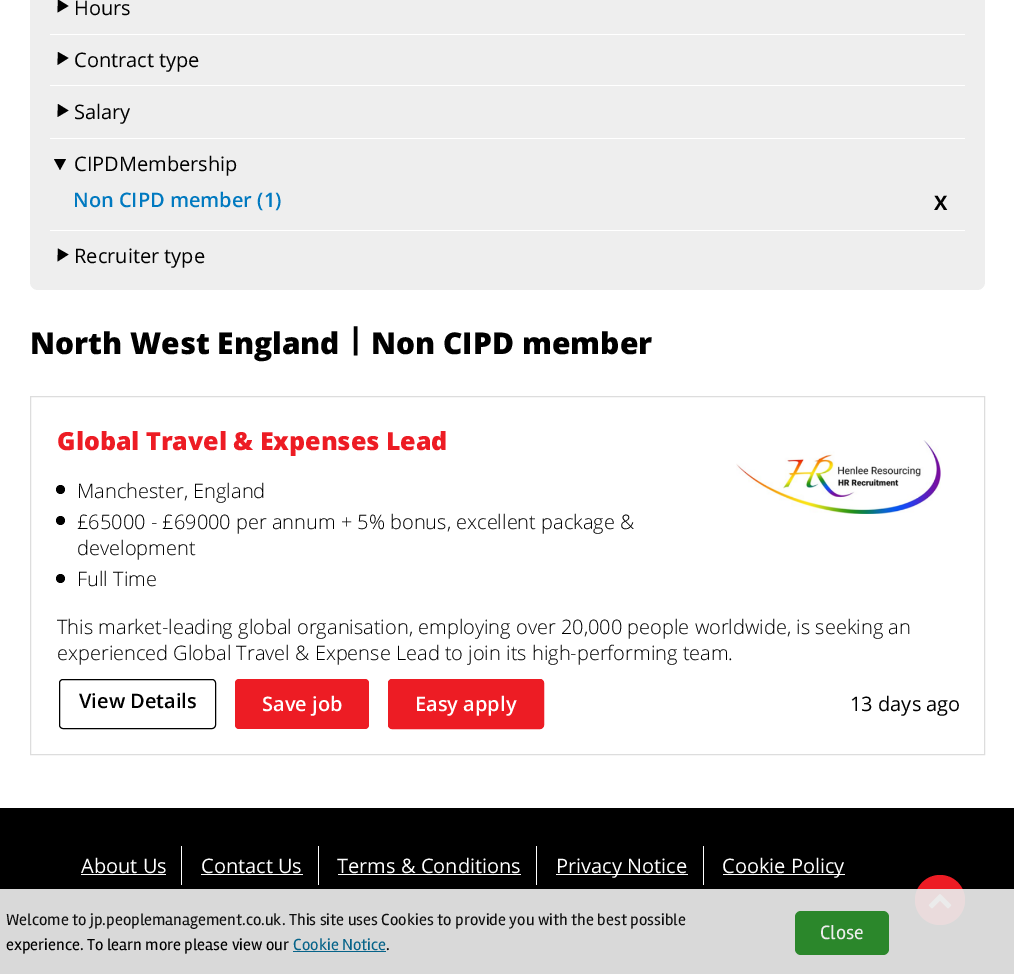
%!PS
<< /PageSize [1014 974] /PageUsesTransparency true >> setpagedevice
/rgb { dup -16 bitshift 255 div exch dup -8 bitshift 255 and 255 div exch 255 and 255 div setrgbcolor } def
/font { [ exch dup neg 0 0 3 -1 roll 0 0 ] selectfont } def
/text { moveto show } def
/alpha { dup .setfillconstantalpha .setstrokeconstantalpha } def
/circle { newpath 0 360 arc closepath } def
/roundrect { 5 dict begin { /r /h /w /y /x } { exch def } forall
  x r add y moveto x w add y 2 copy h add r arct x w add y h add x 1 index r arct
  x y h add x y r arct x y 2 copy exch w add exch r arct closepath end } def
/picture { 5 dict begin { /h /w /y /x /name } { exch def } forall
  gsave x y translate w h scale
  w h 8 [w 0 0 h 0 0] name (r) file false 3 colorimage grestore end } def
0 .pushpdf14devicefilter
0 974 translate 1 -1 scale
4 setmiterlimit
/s1 { /OpenSans-Regular 20 font 16#000000 rgb } def
/s2 { /OpenSans-SemiBold 20 font 16#0079C0 rgb } def
/s3 { /OpenSans-Bold 20 font 16#000000 rgb } def
/s4 { /OpenSans-ExtraBold 30 font 16#000000 rgb } def
/s5 { /OpenSans-ExtraBold 25 font 16#ED1C24 rgb } def
/s6 { /OpenSans-Light 20 font 16#000000 rgb } def
/s7 { /OpenSans-SemiBold 20 font 16#000000 rgb } def
/s8 { /OpenSans-SemiBold 20 font 16#FFFFFF rgb } def
/s9 { /OpenSans-Regular 20 font 16#FFFFFF rgb } def
/s10 { /Rambla-Regular 16.6 font 16#0F0F0F rgb } def
/s11 { /Rambla-Regular 16.6 font 16#000000 rgb } def
/s12 { /Rambla-Regular 16.6 font 16#066389 rgb } def
/s13 { /Rambla-Regular 20 font 16#EDEDED rgb } def
16#FFFFFF rgb
0 0 1014 974 rectfill
16#EEEEEE rgb
30 -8 955 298 8 roundrect fill
16#FFFFFF rgb
50 34 915 1 rectfill
16#000000 rgb
58 -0.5 moveto 68.5 6 lineto 57.5 12.5 lineto closepath fill
s1
(Hours) 74 15 text
16#FFFFFF rgb
50 85 915 1 rectfill
16#000000 rgb
58 52 moveto 68.5 58 lineto 57.5 65 lineto closepath fill
(Contract type) 74 67 text
16#FFFFFF rgb
50 138 915 1 rectfill
16#000000 rgb
58 104 moveto 68.5 110.5 lineto 57.5 117 lineto closepath fill
(Salary) 74 119 text
54 159 moveto 66 159 lineto 60 170 lineto closepath fill
(CIPDMembership) 74 171 text
16#FFFFFF rgb
50 230 915 1 rectfill
s2
(Non CIPD member \(1\)) 73 207 text
s3
(X) 934 210 text
58 248.5 moveto 68.5 254.5 lineto 57.5 261.5 lineto closepath fill
s1
(Recruiter type) 74 263 text
s4
(North West England) 30 354 text
(|) 348 349 text
(Non CIPD member) 371 354 text
16#DDDDDD rgb
30.5 396.5 954 358 rectstroke
s5
(Global Travel & Expenses Lead) 57 450 text
16#000000 rgb
60.5 489.5 4.5 circle fill
s6
(Manchester, England) 77 498 text
60.5 520.5 4.5 circle fill
(£65000 - £69000 per annum + 5% bonus, excellent package &) 77 529 text
(development) 77 555 text
60.5 578.5 4.5 circle fill
(Full Time) 77 586 text
(This market-leading global organisation, employing over 20,000 people worldwide, is seeking an) 57 634 text
(experienced Global Travel & Expense Lead to join its high-performing team.) 57 660 text
(pic1.raw) 736 440 205 74 picture
59.5 679.5 156 49 3.5 roundrect stroke
s7
(View Details) 79 708 text
16#ED1C24 rgb
235 679 134 50 4 roundrect fill
s8
(Save job) 262 711 text
16#ED1C24 rgb
388.5 679.5 155 49 3.5 roundrect gsave fill grestore
stroke
s8
(Easy apply) 415 711 text
s1
(13 days ago) 850 711 text
0 808 1014 166 rectfill
16#FFFFFF rgb
181 846 1 39 rectfill
(About Us) 81 873 text
81 874 85 1 rectfill
318 846 1 39 rectfill
(Contact Us) 201 873 text
201 874 102 1 rectfill
536 846 1 39 rectfill
(Terms & Conditions) 337 873 text
338 874 183 1 rectfill
703 846 1 39 rectfill
556 874 132 1 rectfill
(Privacy Notice) 556 873 text
723 874 122 1 rectfill
(Cookie Policy) 722 873 text
16#ED1C24 rgb
940 900 25 circle fill
(pic2.raw) 928 894 24 15 picture
0.93 alpha
16#EAEAEA rgb
0 889 1014 85 rectfill
1 alpha
s10
(Welcome to jp.peoplemanagement.co.uk. This site uses Cookies to provide you with the best possible) 6 925 text
s11
(experience. To learn more please view our) 6 950 text
s12
(Cookie Notice) 293 950 text
293 951 93 1 rectfill
s11
(.) 386 950 text
0.93 alpha
16#1E811E rgb
795 911 94 44 6 roundrect fill
1 alpha
s13
(Close) 820 939 text
.poppdf14devicefilter showpage
